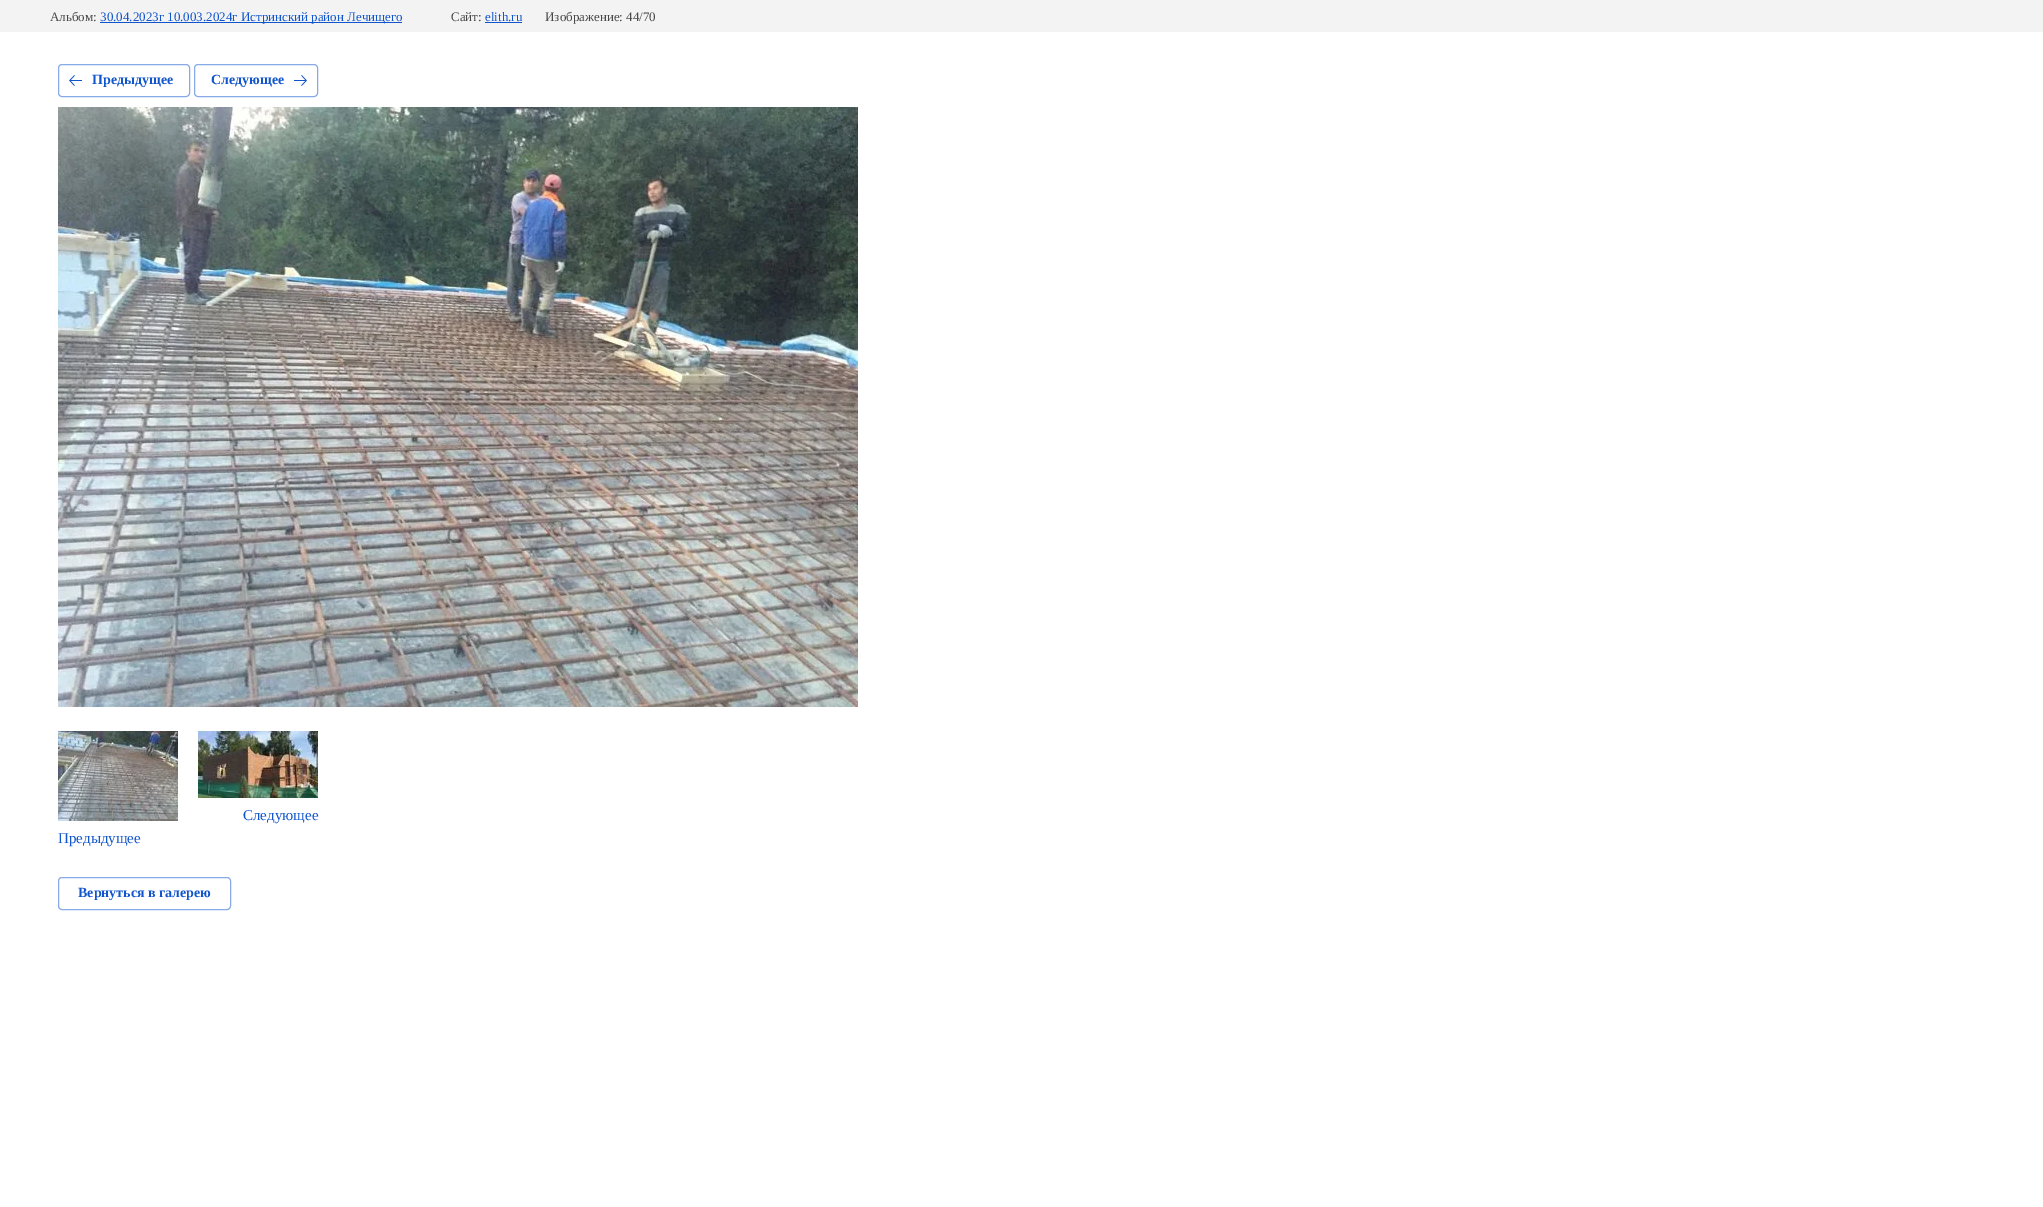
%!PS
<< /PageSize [2043 1207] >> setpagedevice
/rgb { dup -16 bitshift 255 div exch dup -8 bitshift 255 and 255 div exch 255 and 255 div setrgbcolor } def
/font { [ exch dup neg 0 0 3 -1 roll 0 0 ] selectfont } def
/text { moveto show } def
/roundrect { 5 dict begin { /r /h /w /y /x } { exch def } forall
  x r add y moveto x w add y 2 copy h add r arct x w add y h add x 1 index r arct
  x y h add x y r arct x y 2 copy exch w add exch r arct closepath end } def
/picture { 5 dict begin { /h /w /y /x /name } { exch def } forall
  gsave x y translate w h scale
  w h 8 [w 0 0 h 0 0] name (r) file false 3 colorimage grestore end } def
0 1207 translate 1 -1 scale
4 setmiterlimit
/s1 { /LiberationSerif-Regular 13 font 16#484848 rgb } def
/s2 { /LiberationSerif-Regular 13 font 16#1155CC rgb } def
/s3 { /LiberationSerif-Bold 14 font 16#1155CC rgb } def
/s4 { /LiberationSerif-Regular 15 font 16#1155CC rgb } def
16#FFFFFF rgb
0 0 2043 1207 rectfill
16#F3F3F3 rgb
0 0 2043 32 rectfill
s1
(Альбом:) 50 21 text
16#1155CC rgb
100 22 302 1 rectfill
(30.04.2023г 10.003.2024г Истринский район Лечищего) 100 21 text
s1
(Сайт:) 451 21 text
s2
(elith.ru) 485 21 text
485 22 37 1 rectfill
s1
(Изображение: 44/70) 545 21 text
16#88AAE6 rgb
58.5 64.5 131 32 3.5 roundrect stroke
(pic1.raw) 69 75 13 11 picture
s3
(Предыдущее) 92 84 text
16#88AAE6 rgb
194.5 64.5 123 32 3.5 roundrect stroke
s3
(Следующее) 211 84 text
(pic2.raw) 294 75 13 11 picture
(pic3.raw) 58 107 800 600 picture
(pic4.raw) 198 731 120 67 picture
s4
(Следующее) 243 820 text
(pic5.raw) 58 731 120 90 picture
(Предыдущее) 58 843 text
16#88AAE6 rgb
58.5 877.5 172 32 3.5 roundrect stroke
s3
(Вернуться в галерею) 78 897 text
showpage
